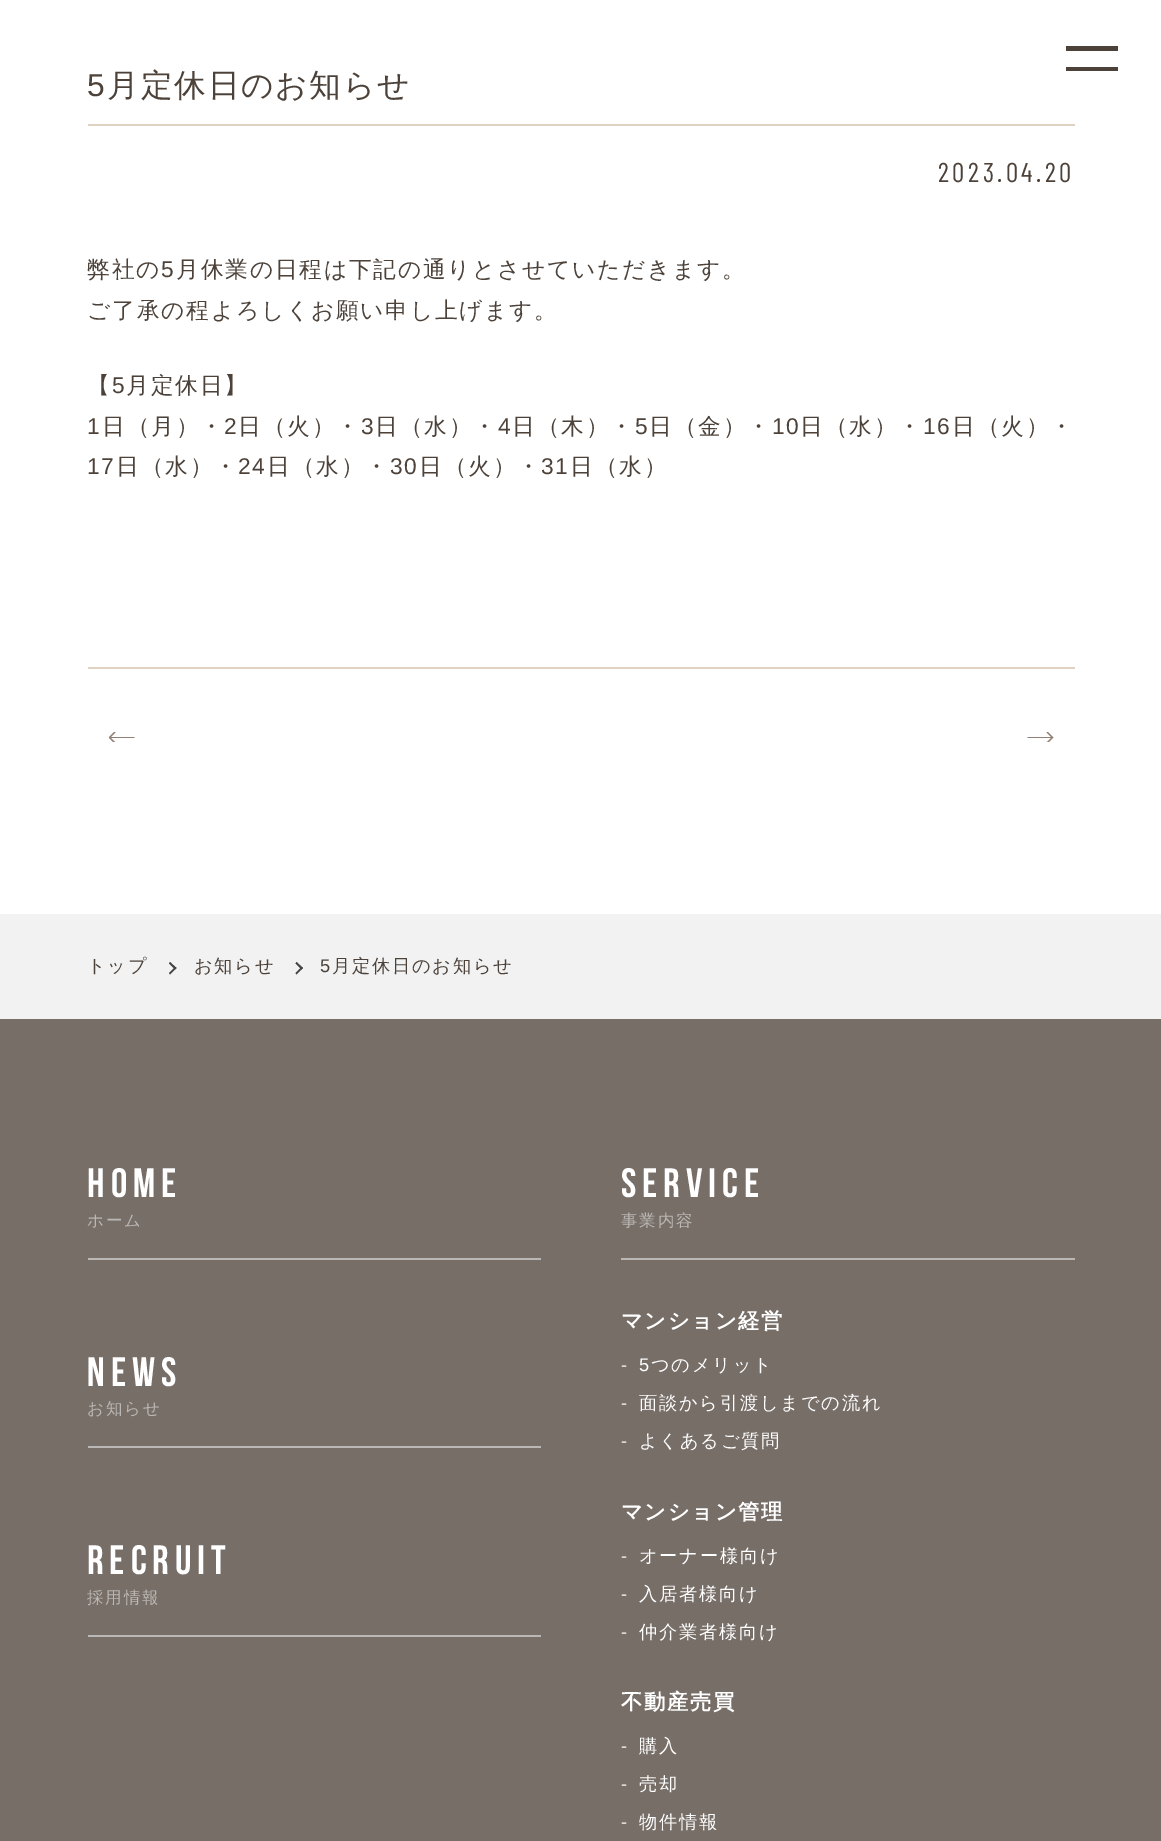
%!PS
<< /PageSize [1161 1841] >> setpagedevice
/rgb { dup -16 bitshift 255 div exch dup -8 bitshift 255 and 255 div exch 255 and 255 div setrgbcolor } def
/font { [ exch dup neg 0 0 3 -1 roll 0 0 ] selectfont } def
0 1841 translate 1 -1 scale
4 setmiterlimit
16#FFFFFF rgb
0 0 1161 1841 rectfill
16#4C423A rgb
1066 46 52 5 rectfill
1066 67 52 4 rectfill
16#DFD2C3 rgb
88 124 987 2 rectfill
/LiberationSans-Regular 31.75 font
16#4C423A rgb
87 96 moveto 1.75 0 (5) ashow
/WenQuanYiZenHei-Medium 31.75 font
107 96 moveto 1.75 0 (月定休日のお知らせ) ashow
/BarlowCondensed-Regular 27.25 font
938 182 moveto 3.5 0 (2023.04.20) ashow
16#DFD2C3 rgb
88 667 987 2 rectfill
/WenQuanYiZenHei-Medium 22.75 font
16#4C423A rgb
87 277 moveto 1.75 0 (弊社の) ashow
/LiberationSans-Regular 22.75 font
161 277 moveto 1.75 0 (5) ashow
/WenQuanYiZenHei-Medium 22.75 font
176 277 moveto 1.75 0 (月休業の日程は下記の通りとさせていただきます。) ashow
87 318 moveto 1.75 0 (ご了承の程よろしくお願い申し上げます。) ashow
87 393 moveto 1.75 0 (【) ashow
/LiberationSans-Regular 22.75 font
112 393 moveto 1.75 0 (5) ashow
/WenQuanYiZenHei-Medium 22.75 font
126 393 moveto 1.75 0 (月定休日】) ashow
/LiberationSans-Regular 22.75 font
87 434 moveto 1.75 0 (1) ashow
/WenQuanYiZenHei-Medium 22.75 font
102 434 moveto 1.75 0 (日（月）・) ashow
/LiberationSans-Regular 22.75 font
224 434 moveto 1.75 0 (2) ashow
/WenQuanYiZenHei-Medium 22.75 font
238 434 moveto 1.75 0 (日（火）・) ashow
/LiberationSans-Regular 22.75 font
361 434 moveto 1.75 0 (3) ashow
/WenQuanYiZenHei-Medium 22.75 font
375 434 moveto 1.75 0 (日（水）・) ashow
/LiberationSans-Regular 22.75 font
498 434 moveto 1.75 0 (4) ashow
/WenQuanYiZenHei-Medium 22.75 font
512 434 moveto 1.75 0 (日（木）・) ashow
/LiberationSans-Regular 22.75 font
635 434 moveto 1.75 0 (5) ashow
/WenQuanYiZenHei-Medium 22.75 font
649 434 moveto 1.75 0 (日（金）・) ashow
/LiberationSans-Regular 22.75 font
772 434 moveto 1.75 0 (10) ashow
/WenQuanYiZenHei-Medium 22.75 font
800 434 moveto 1.75 0 (日（水）・) ashow
/LiberationSans-Regular 22.75 font
923 434 moveto 1.75 0 (16) ashow
/WenQuanYiZenHei-Medium 22.75 font
952 434 moveto 1.75 0 (日（火）・) ashow
/LiberationSans-Regular 22.75 font
87 474 moveto 1.75 0 (17) ashow
/WenQuanYiZenHei-Medium 22.75 font
116 474 moveto 1.75 0 (日（水）・) ashow
/LiberationSans-Regular 22.75 font
238 474 moveto 1.75 0 (24) ashow
/WenQuanYiZenHei-Medium 22.75 font
267 474 moveto 1.75 0 (日（水）・) ashow
/LiberationSans-Regular 22.75 font
390 474 moveto 1.75 0 (30) ashow
/WenQuanYiZenHei-Medium 22.75 font
419 474 moveto 1.75 0 (日（火）・) ashow
/LiberationSans-Regular 22.75 font
541 474 moveto 1.75 0 (31) ashow
/WenQuanYiZenHei-Medium 22.75 font
570 474 moveto 1.75 0 (日（水）) ashow
gsave
109 732 26 10 rectclip
16#918075 rgb
114.5 743.5 moveto 115.5 742.5 lineto 111 738 lineto 134.5 738 lineto 134.5 737 lineto 111 737 lineto 115.5 732.5 lineto 114.5 731.5 lineto 108.5 737.5 lineto closepath fill
grestore
gsave
1027 732 27 10 rectclip
16#918075 rgb
1046.5 732.5 moveto 1051 737 lineto 1027.5 737 lineto 1027.5 738 lineto 1051 738 lineto 1046.5 742.5 lineto 1047.5 743.5 lineto 1053.5 737.5 lineto 1047.5 731.5 lineto closepath fill
grestore
16#F2F2F2 rgb
0 914 1161 105 rectfill
/WenQuanYiZenHei-Medium 18.25 font
16#4C423A rgb
87 972 moveto 1.75 0 (トップ) ashow
16#444444 rgb
170 962 moveto 176.5 968 lineto 175 969.5 lineto 169 963.5 lineto closepath fill
175 967 moveto 176.5 968 lineto 170 974.5 lineto 169 973 lineto closepath fill
16#4C423A rgb
194 972 moveto 1.75 0 (お知らせ) ashow
16#444444 rgb
296.5 962 moveto 303 968 lineto 301.5 969.5 lineto 295.5 963.5 lineto closepath fill
301.5 967 moveto 303 968 lineto 296.5 974.5 lineto 295.5 973 lineto closepath fill
/LiberationSans-Regular 18.25 font
16#4C423A rgb
320 972 moveto 1.75 0 (5) ashow
/WenQuanYiZenHei-Medium 18.25 font
332 972 moveto 1.75 0 (月定休日のお知らせ) ashow
16#776E68 rgb
0 1019 1161 822 rectfill
16#BBB7B4 rgb
88 1258 453 2 rectfill
/BebasNeue-Bold 41 font
16#FFFFFF rgb
87 1197 moveto 6 0 (HOME) ashow
/WenQuanYiZenHei-Medium 16.5 font
16#BBB7B4 rgb
87 1226 moveto 1.75 0 (ホーム) ashow
88 1446 453 2 rectfill
/BebasNeue-Bold 41 font
16#FFFFFF rgb
87 1386 moveto 6 0 (NEWS) ashow
/WenQuanYiZenHei-Medium 16.5 font
16#BBB7B4 rgb
87 1414 moveto 1.75 0 (お知らせ) ashow
88 1635 453 2 rectfill
/BebasNeue-Bold 41 font
16#FFFFFF rgb
87 1574 moveto 6 0 (RECRUIT) ashow
/WenQuanYiZenHei-Medium 16.5 font
16#BBB7B4 rgb
87 1603 moveto 1.75 0 (採用情報) ashow
621 1258 454 2 rectfill
/BebasNeue-Bold 41 font
16#FFFFFF rgb
621 1197 moveto 6 0 (SERVICE) ashow
/WenQuanYiZenHei-Medium 16.5 font
16#BBB7B4 rgb
621 1226 moveto 1.75 0 (事業内容) ashow
/WenQuanYiZenHei-Bold 21.25 font
16#FFFFFF rgb
621 1328 moveto 1.75 0 (マンション経営) ashow
/LiberationSans-Regular 18.25 font
621 1371 moveto 1.75 0 (-) ashow
639 1371 moveto 1.75 0 (5) ashow
/WenQuanYiZenHei-Medium 18.25 font
651 1371 moveto 1.75 0 (つのメリット) ashow
/LiberationSans-Regular 18.25 font
621 1409 moveto 1.75 0 (-) ashow
/WenQuanYiZenHei-Medium 18.25 font
639 1409 moveto 1.75 0 (面談から引渡しまでの流れ) ashow
/LiberationSans-Regular 18.25 font
621 1447 moveto 1.75 0 (-) ashow
/WenQuanYiZenHei-Medium 18.25 font
639 1447 moveto 1.75 0 (よくあるご質問) ashow
/WenQuanYiZenHei-Bold 21.25 font
621 1519 moveto 1.75 0 (マンション管理) ashow
/LiberationSans-Regular 18.25 font
621 1562 moveto 1.75 0 (-) ashow
/WenQuanYiZenHei-Medium 18.25 font
639 1562 moveto 1.75 0 (オーナー様向け) ashow
/LiberationSans-Regular 18.25 font
621 1600 moveto 1.75 0 (-) ashow
/WenQuanYiZenHei-Medium 18.25 font
639 1600 moveto 1.75 0 (入居者様向け) ashow
/LiberationSans-Regular 18.25 font
621 1638 moveto 1.75 0 (-) ashow
/WenQuanYiZenHei-Medium 18.25 font
639 1638 moveto 1.75 0 (仲介業者様向け) ashow
/WenQuanYiZenHei-Bold 21.25 font
621 1709 moveto 1.75 0 (不動産売買) ashow
/LiberationSans-Regular 18.25 font
621 1752 moveto 1.75 0 (-) ashow
/WenQuanYiZenHei-Medium 18.25 font
639 1752 moveto 1.75 0 (購入) ashow
/LiberationSans-Regular 18.25 font
621 1790 moveto 1.75 0 (-) ashow
/WenQuanYiZenHei-Medium 18.25 font
639 1790 moveto 1.75 0 (売却) ashow
/LiberationSans-Regular 18.25 font
621 1828 moveto 1.75 0 (-) ashow
/WenQuanYiZenHei-Medium 18.25 font
639 1828 moveto 1.75 0 (物件情報) ashow
showpage
